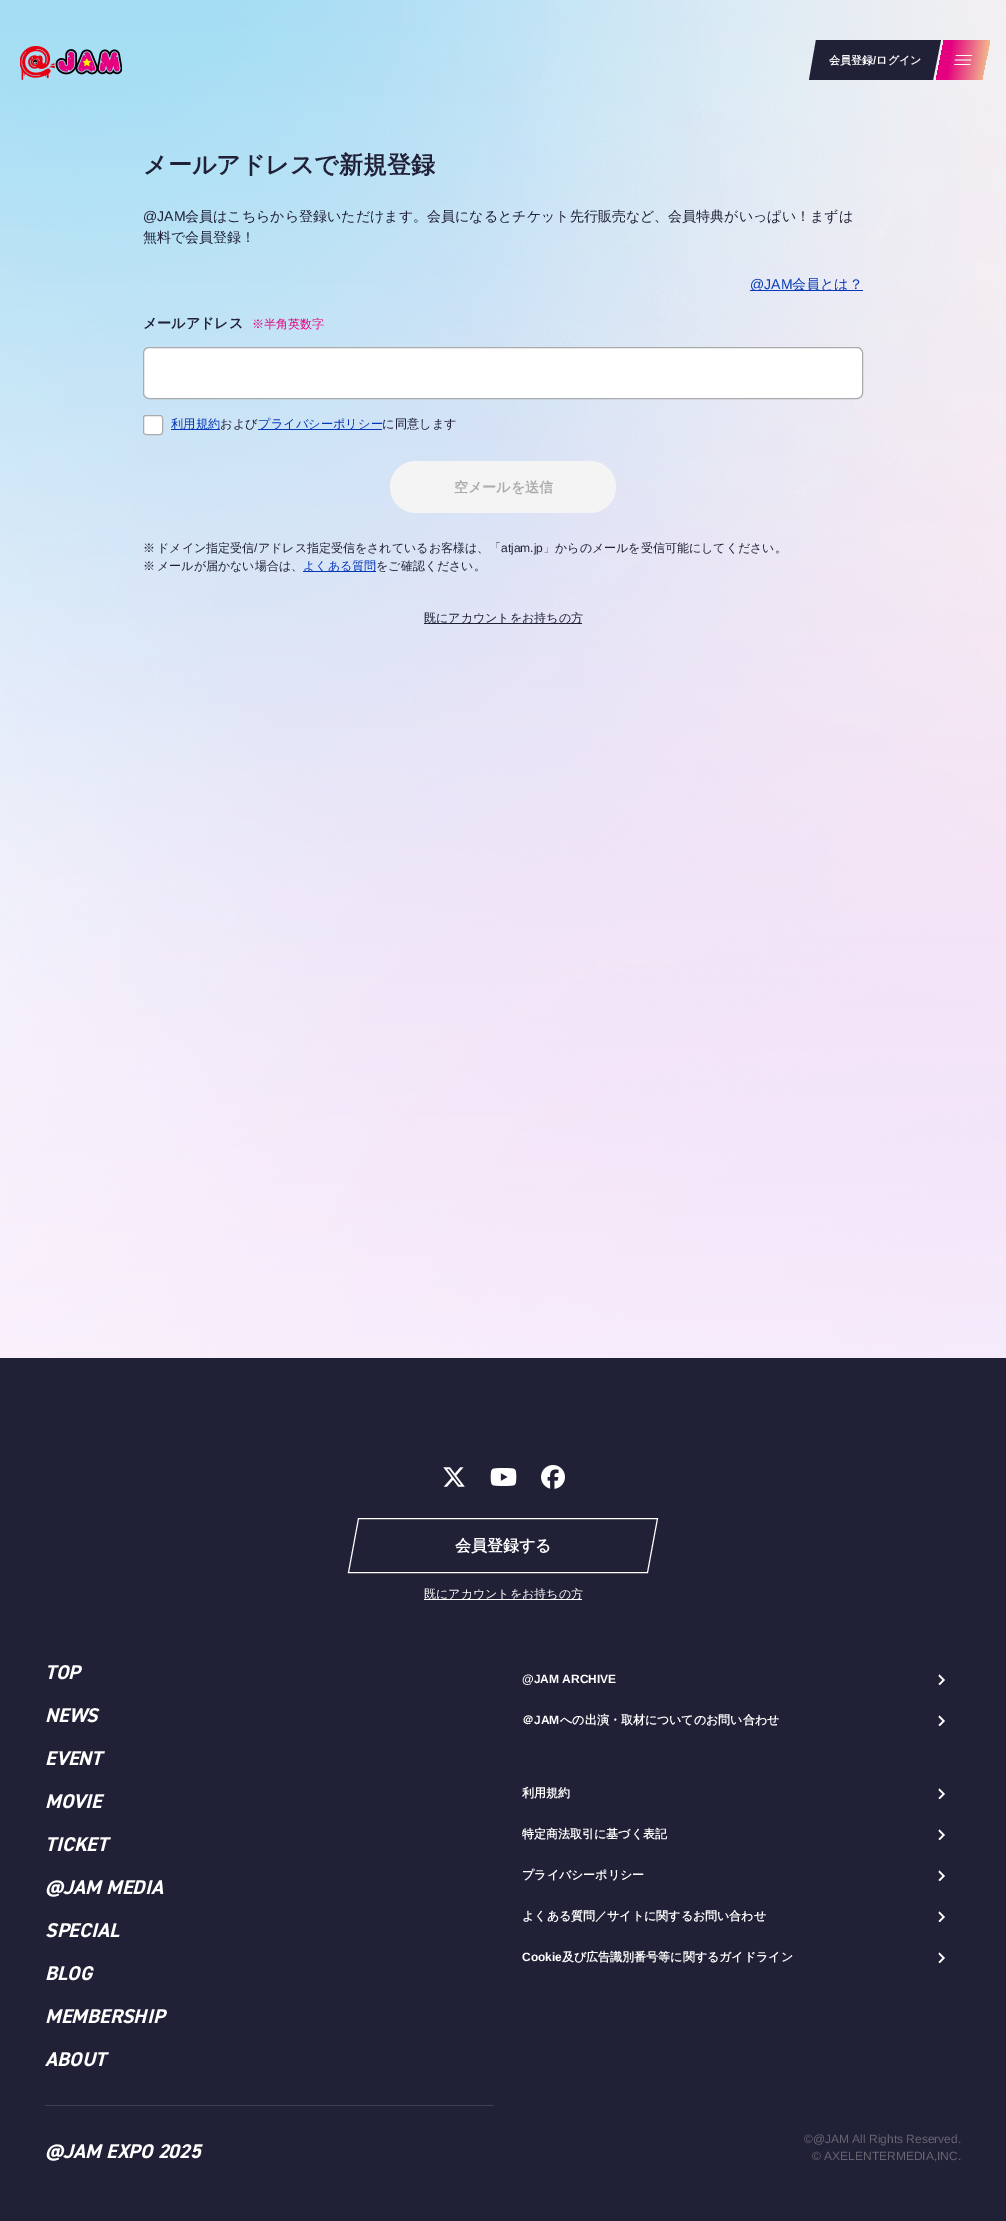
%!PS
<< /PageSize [1006 2221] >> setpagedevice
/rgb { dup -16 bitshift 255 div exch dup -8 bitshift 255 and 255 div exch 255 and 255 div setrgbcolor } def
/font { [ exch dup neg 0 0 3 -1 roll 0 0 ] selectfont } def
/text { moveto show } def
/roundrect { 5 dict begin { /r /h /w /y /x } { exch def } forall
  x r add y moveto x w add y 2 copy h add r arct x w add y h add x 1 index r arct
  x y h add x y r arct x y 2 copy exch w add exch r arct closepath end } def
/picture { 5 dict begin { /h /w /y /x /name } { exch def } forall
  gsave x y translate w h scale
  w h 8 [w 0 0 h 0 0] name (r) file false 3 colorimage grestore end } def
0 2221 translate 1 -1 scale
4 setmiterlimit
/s1 { /WenQuanYiZenHei-Bold 11 font 16#FFFFFF rgb } def
/s2 { /LiberationSans-Bold 11 font 16#FFFFFF rgb } def
/s3 { /WenQuanYiZenHei-Bold 24 font 16#202037 rgb } def
/s4 { /LiberationSans-Regular 14 font 16#202037 rgb } def
/s5 { /WenQuanYiZenHei-Medium 14 font 16#202037 rgb } def
/s6 { /LiberationSans-Regular 14 font 16#0537B8 rgb } def
/s7 { /WenQuanYiZenHei-Medium 14 font 16#0537B8 rgb } def
/s8 { /WenQuanYiZenHei-Bold 14 font 16#202037 rgb } def
/s9 { /WenQuanYiZenHei-Medium 12 font 16#E4007F rgb } def
/s10 { /WenQuanYiZenHei-Medium 12.25 font 16#0537B8 rgb } def
/s11 { /WenQuanYiZenHei-Medium 12.25 font 16#202037 rgb } def
/s12 { /WenQuanYiZenHei-Bold 14 font 16#ABABAB rgb } def
/s13 { /WenQuanYiZenHei-Medium 12 font 16#202037 rgb } def
/s14 { /LiberationSans-Regular 12 font 16#202037 rgb } def
/s15 { /WenQuanYiZenHei-Medium 12 font 16#0537B8 rgb } def
/s16 { /WenQuanYiZenHei-Bold 16 font 16#FFFFFF rgb } def
/s17 { /WenQuanYiZenHei-Medium 12 font 16#FFFFFF rgb } def
/s18 { /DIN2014-BoldItalic 20 font 16#FFFFFF rgb } def
/s19 { /LiberationSans-Bold 12 font 16#FFFFFF rgb } def
/s20 { /WenQuanYiZenHei-Bold 12 font 16#FFFFFF rgb } def
/s21 { /LiberationSans-Regular 12 font 16#666671 rgb } def
16#FFFFFF rgb
0 0 1006 2221 rectfill
(pic1.raw) 0 0 1006 1358 picture
(pic2.raw) 20 46 102 34 picture
16#202037 rgb
816 40 moveto 941 40 lineto 933 80 lineto 809 80 lineto closepath fill
s1
(会員登録 ログイン) 829 64 text
s2
(/) 873 64 text
gsave 944 40 moveto 990 40 lineto 982 80 lineto 936 80 lineto closepath clip newpath
<< /ShadingType 2 /ColorSpace /DeviceRGB /Coords [938 57 997 65] /Extend [true true] /Function << /FunctionType 3 /Domain [0 1] /Functions [<< /FunctionType 2 /Domain [0 1] /C0 [0.894 0 0.498] /C1 [0.894 0 0.498] /N 1 >> << /FunctionType 2 /Domain [0 1] /C0 [0.894 0 0.498] /C1 [0.961 0.922 0.569] /N 1 >>] /Bounds [0.19] /Encode [0 1 0 1] >> >> shfill grestore
956.5 55 moveto 971.5 55 lineto 972.5 56 971.5 56 968.5 56 curveto 956 56 lineto 955.5 55.5 956 55 956.5 55 curveto closepath 955.5 59.5 moveto 971 59.5 lineto 971.5 60.5 970.5 60.5 968 60.5 curveto 955 60.5 lineto 954.5 60 955 59.5 955.5 59.5 curveto closepath 955 64 moveto 970 64 lineto 971 65 970 65 967 65 curveto 954.5 65 lineto 954 64.5 954.5 64 955 64 curveto closepath fill
s3
(メールアドレスで新規登録) 143 173 text
s4
(@JAM) 143 221 text
s5
(会員はこちらから登録いただけます。会員になるとチケット先行販売など、会員特典がいっぱい！まずは) 185 221 text
(無料で会員登録！) 143 242 text
16#0537B8 rgb
750 290 113 1 rectfill
s6
(@JAM) 750 289 text
s7
(会員とは？) 792 289 text
s8
(メールアドレス) 143 328 text
s9
(※半角英数字) 252 328 text
16#FFFFFF rgb
143.5 347.5 719 51 5.5 roundrect gsave fill grestore
16#ABABAB rgb
stroke
16#FFFFFF rgb
143.5 415.5 19 19 2.5 roundrect gsave fill grestore
16#ABABAB rgb
stroke
16#0537B8 rgb
171 429 49 1 rectfill
s10
(利用規約) 171 428 text
s11
(および) 220 428 text
16#0537B8 rgb
258 429 124 1 rectfill
(プライバシーポリシー) 258 428 text
s11
(に同意します) 382 428 text
16#F4F4F4 rgb
390 461 226 52 26 roundrect fill
s12
(空メールを送信) 454 492 text
s13
(※) 143 552 text
(ドメイン指定受信 アドレス指定受信をされているお客様は、「) 157 552 text
(」からのメールを受信可能にしてください。) 543 552 text
s14
(/) 254 552 text
(atjam.jp) 501 552 text
s13
(※) 143 570 text
(メールが届かない場合は、) 157 570 text
16#0537B8 rgb
303 571 73 1 rectfill
(よくある質問) 303 570 text
s13
(をご確認ください。) 376 570 text
424 623 158 1 rectfill
(既にアカウントをお持ちの方) 424 622 text
0 1358 1006 863 rectfill
(pic3.raw) 443 1467 22 20 picture
(pic4.raw) 490 1468 27 18 picture
(pic5.raw) 541 1465 24 24 picture
16#FFFFFF rgb
358.5 1518.5 moveto 657.5 1518.5 lineto 647.5 1572.5 lineto 348.5 1572.5 lineto closepath stroke
s16
(会員登録する) 455 1551 text
424 1599 158 1 rectfill
s17
(既にアカウントをお持ちの方) 424 1598 text
s18
(TOP) 45 1679 text
(NEWS) 45 1722 text
(EVENT) 45 1765 text
(MOVIE) 45 1808 text
(TICKET) 45 1851 text
(@JAM MEDIA) 45 1894 text
(SPECIAL) 45 1937 text
(BLOG) 45 1980 text
(MEMBERSHIP) 45 2023 text
(ABOUT) 45 2066 text
16#414155 rgb
45 2105 449 1 rectfill
s18
(@JAM EXPO 2025) 45 2158 text
s19
(@JAM ARCHIVE) 522 1683 text
942.5 1680 moveto 938.5 1676 lineto 939.5 1674.5 lineto 945 1680 lineto 940 1685 lineto 939.5 1685 lineto 938.5 1684 lineto closepath fill
s20
(＠) 522 1724 text
s19
(JAM) 534 1724 text
s20
(への出演・取材についてのお問い合わせ) 560 1724 text
942.5 1721 moveto 938.5 1717 lineto 939.5 1715.5 lineto 945 1721 lineto 940 1726 lineto 939.5 1726 lineto 938.5 1725 lineto closepath fill
(利用規約) 522 1797 text
942.5 1794 moveto 938.5 1790 lineto 939.5 1788.5 lineto 945 1794 lineto 940 1799 lineto 939.5 1799 lineto 938.5 1798 lineto closepath fill
(特定商法取引に基づく表記) 522 1838 text
942.5 1835 moveto 938.5 1831 lineto 939.5 1829.5 lineto 945 1835 lineto 940 1840 lineto 939.5 1840 lineto 938.5 1839 lineto closepath fill
(プライバシーポリシー) 522 1879 text
942.5 1876 moveto 938.5 1872 lineto 939.5 1870.5 lineto 945 1876 lineto 940 1881 lineto 939.5 1881 lineto 938.5 1880 lineto closepath fill
(よくある質問／サイトに関するお問い合わせ) 522 1920 text
942.5 1917 moveto 938.5 1913 lineto 939.5 1911.5 lineto 945 1917 lineto 940 1922 lineto 939.5 1922 lineto 938.5 1921 lineto closepath fill
s19
(Cookie) 522 1961 text
s20
(及び広告識別番号等に関するガイドライン) 562 1961 text
942.5 1958 moveto 938.5 1954 lineto 939.5 1952.5 lineto 945 1958 lineto 940 1963 lineto 939.5 1963 lineto 938.5 1962 lineto closepath fill
s21
(©@JAM All Rights Reserved.) 804 2143 text
(© AXELENTERMEDIA,INC.) 812 2160 text
showpage
